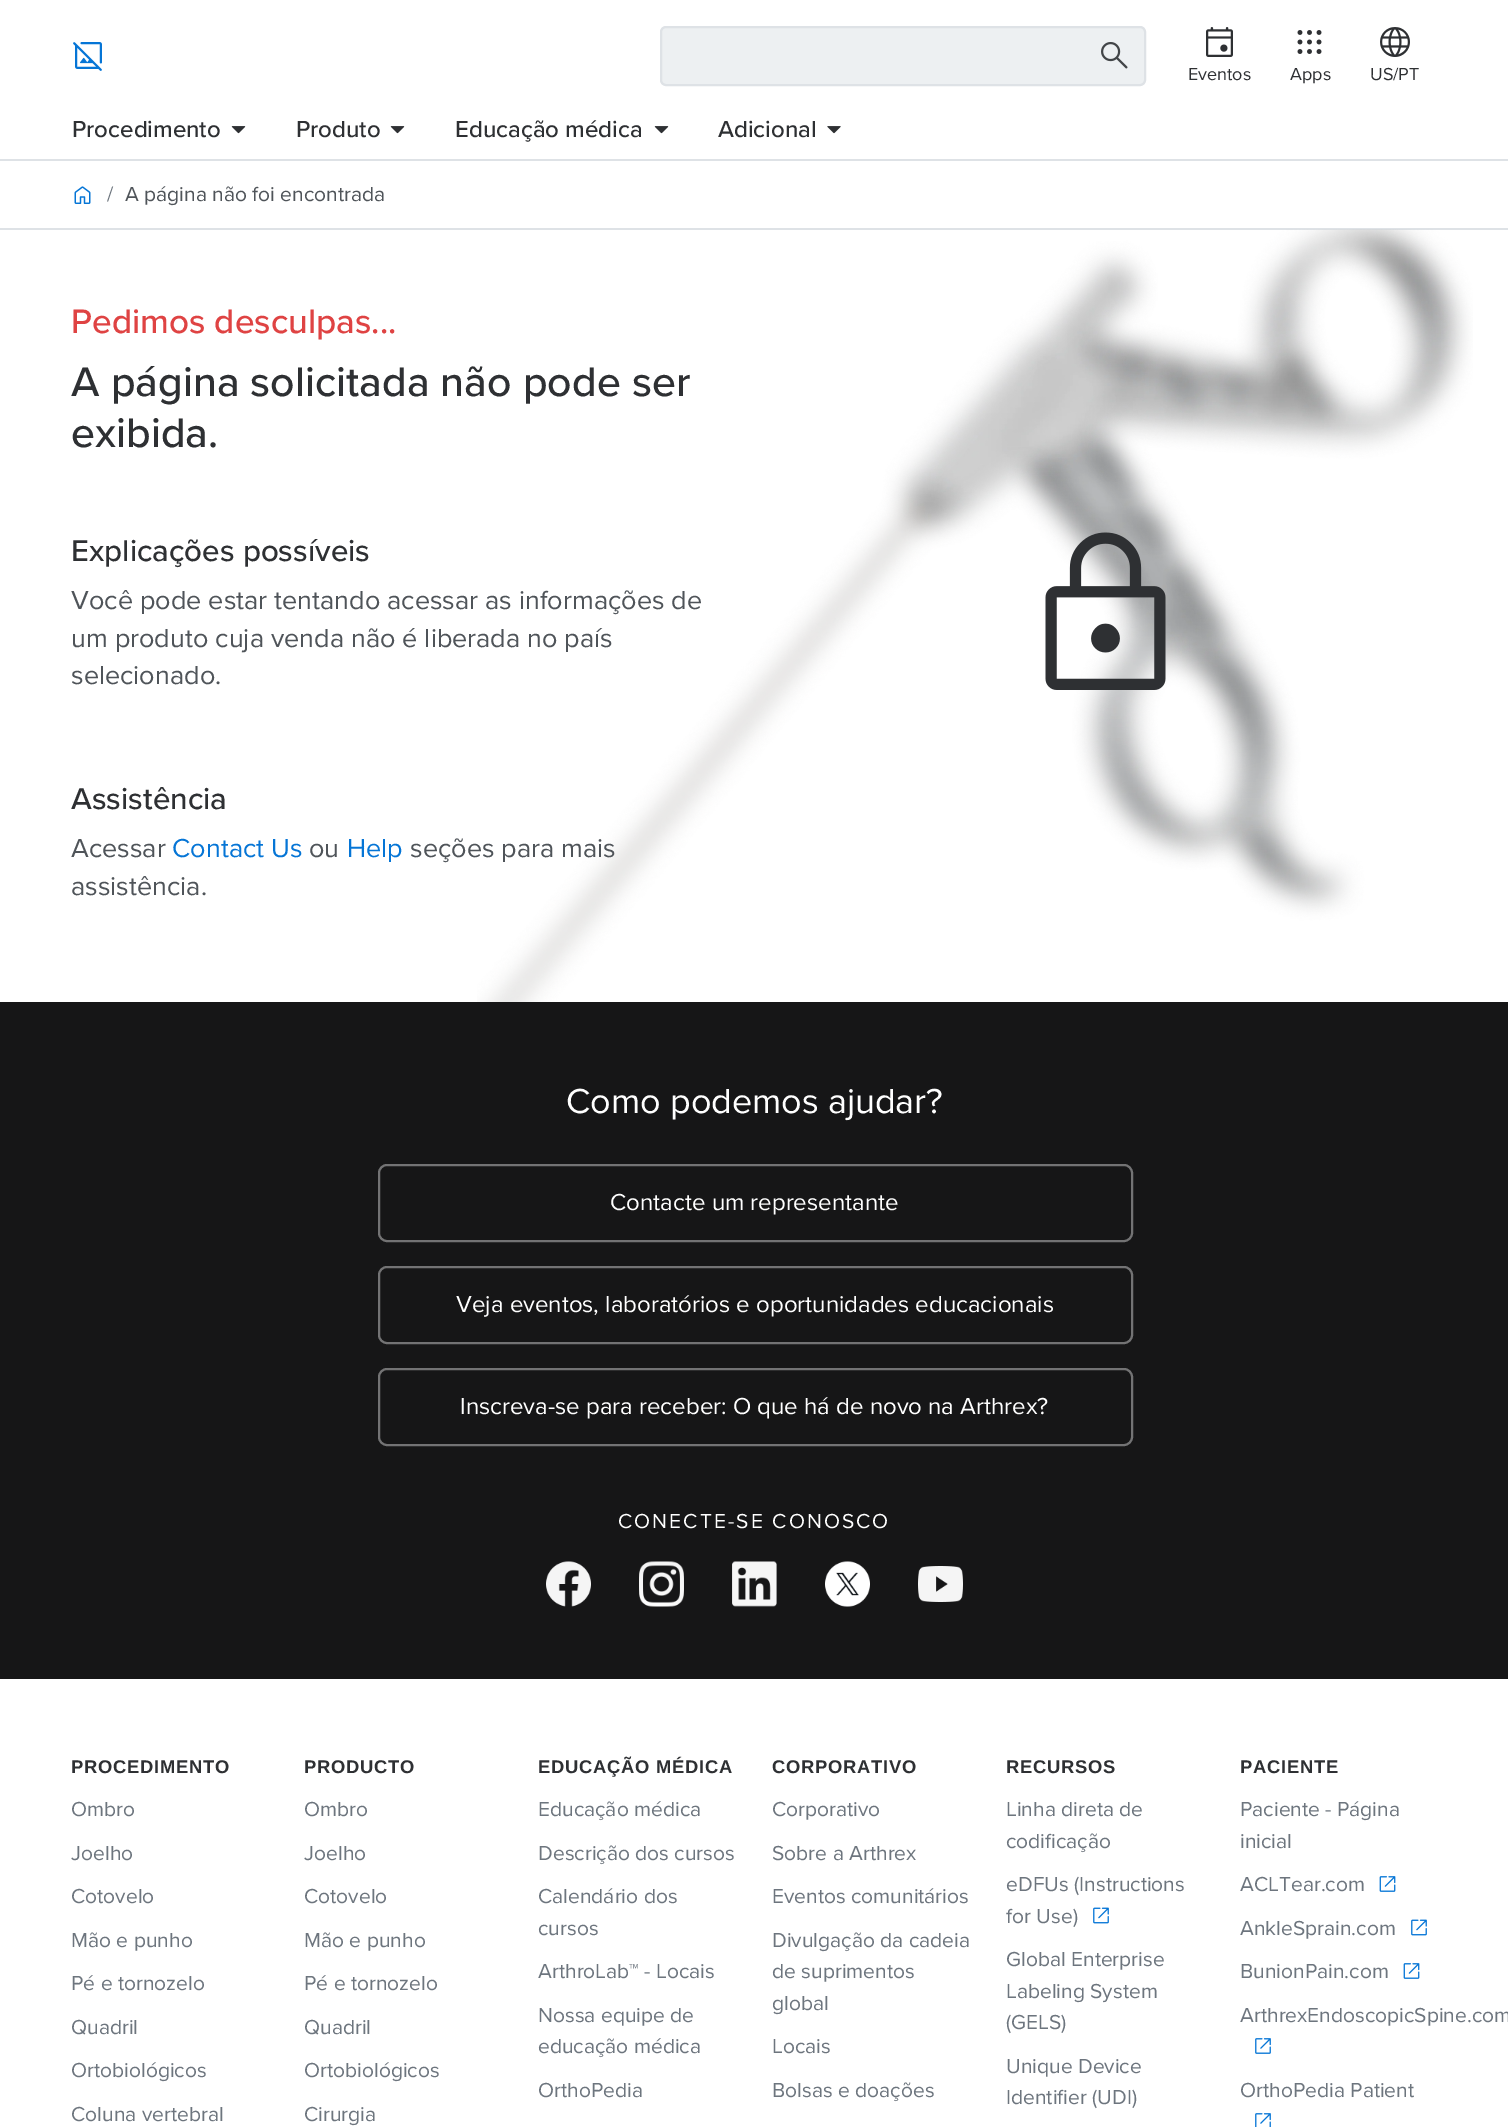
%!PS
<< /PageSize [1508 2127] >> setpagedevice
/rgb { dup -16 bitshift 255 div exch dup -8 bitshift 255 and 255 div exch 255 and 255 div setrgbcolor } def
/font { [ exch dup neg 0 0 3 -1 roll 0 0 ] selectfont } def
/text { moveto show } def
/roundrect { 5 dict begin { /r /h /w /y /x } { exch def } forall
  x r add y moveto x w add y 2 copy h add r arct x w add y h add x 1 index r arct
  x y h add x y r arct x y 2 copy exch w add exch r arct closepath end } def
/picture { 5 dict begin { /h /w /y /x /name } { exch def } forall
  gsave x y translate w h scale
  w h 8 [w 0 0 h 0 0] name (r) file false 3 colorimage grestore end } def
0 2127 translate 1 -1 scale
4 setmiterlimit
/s1 { /ProximaNova-Regular 18 font 16#2E3033 rgb } def
/s2 { /ProximaNova-Medium 24 font 16#2E3033 rgb } def
/s3 { /ProximaNova-Regular 21 font 16#6D757E rgb } def
/s4 { /ProximaNova-Regular 21 font 16#4F5459 rgb } def
/s5 { /ProximaNova-Medium 35.1 font 16#DF4343 rgb } def
/s6 { /ProximaNova-Medium 42.8 font 16#2E3033 rgb } def
/s7 { /ProximaNova-Medium 31.25 font 16#2E3033 rgb } def
/s8 { /ProximaNova-Regular 27 font 16#4F5459 rgb } def
/s9 { /ProximaNova-Regular 27 font 16#0575D6 rgb } def
/s10 { /ProximaNova-Regular 36 font 16#FFFFFF rgb } def
/s11 { /ProximaNova-Regular 24 font 16#FFFFFF rgb } def
16#FFFFFF rgb
0 0 1508 2127 rectfill
(pic1.raw) 73 42 29 29 picture
16#EDF0F2 rgb
661 27 484 58 5 roundrect gsave fill grestore
16#DEE2E6 rgb
2 setlinewidth
stroke
(pic2.raw) 1101 42 27 27 picture
(pic3.raw) 1206 27 27 30 picture
s1
(Eventos) 1188 80 text
(pic4.raw) 1297 30 25 24 picture
(Apps) 1290 80 text
(pic5.raw) 1380 27 30 30 picture
(US/PT) 1370 80 text
s2
(Procedimento) 72 137 text
(pic6.raw) 231 126 15 8 picture
(Produto) 296 137 text
(pic6.raw) 390 126 15 8 picture
(Educação médica) 455 137 text
(pic6.raw) 654 126 15 8 picture
(Adicional) 718 137 text
(pic7.raw) 827 126 14 8 picture
16#DEE2E6 rgb
0 159 1508 2 rectfill
(pic8.raw) 74 186 17 18 picture
s3
(/) 107 201 text
s4
(A página não foi encontrada) 125 201 text
16#DEE2E6 rgb
0 228 1508 2 rectfill
(pic9.raw) 477 229 996 773 picture
s5
(Pedimos desculpas...) 71 333 text
s6
(A página solicitada não pode ser) 71 396 text
(exibida.) 71 447 text
s7
(Explicações possíveis) 71 561 text
s8
(Você pode estar tentando acessar as informações de) 71 609 text
(um produto cuja venda não é liberada no país) 71 647 text
(selecionado.) 71 684 text
s7
(Assistência) 71 809 text
s8
(Acessar) 71 857 text
s9
(Contact Us) 172 857 text
s8
(ou) 309 857 text
s9
(Help) 347 857 text
s8
(seções para mais) 410 857 text
(assistência.) 71 895 text
(pic10.raw) 1045 532 121 158 picture
16#161617 rgb
0 1002 1508 677 rectfill
s10
(Como podemos ajudar?) 566 1113 text
16#737374 rgb
379 1165 753 76 8 roundrect stroke
s11
(Contacte um representante) 610 1210 text
16#737374 rgb
379 1267 753 76 8 roundrect stroke
s11
(Veja eventos, laboratórios e oportunidades educacionais) 456 1312 text
16#737374 rgb
379 1369 753 76 8 roundrect stroke
s11
(Inscreva-se para receber: O que há de novo na Arthrex?) 460 1414 text
/ProximaNova-Regular 21 font
618 1528 moveto 2.1 0 (CONECTE-SE CONOSCO) ashow
(pic11.raw) 546 1561 45 46 picture
(pic12.raw) 639 1561 45 46 picture
(pic13.raw) 732 1561 45 46 picture
(pic14.raw) 825 1561 45 46 picture
(pic15.raw) 918 1566 45 36 picture
/LiberationSans-Bold 18.4 font
16#2E3033 rgb
71 1773 moveto 0.75 0 (PROCEDIMENTO) ashow
s3
(Ombro) 71 1816 text
(Joelho) 71 1860 text
(Cotovelo) 71 1903 text
(Mão e punho) 71 1947 text
(Pé e tornozelo) 71 1990 text
(Quadril) 71 2034 text
(Ortobiológicos) 71 2077 text
(Coluna vertebral) 71 2121 text
/LiberationSans-Bold 18.4 font
16#2E3033 rgb
304 1773 moveto 0.75 0 (PRODUCTO) ashow
s3
(Ombro) 304 1816 text
(Joelho) 304 1860 text
(Cotovelo) 304 1903 text
(Mão e punho) 304 1947 text
(Pé e tornozelo) 304 1990 text
(Quadril) 304 2034 text
(Ortobiológicos) 304 2077 text
(Cirurgia) 304 2121 text
/LiberationSans-Bold 18.4 font
16#2E3033 rgb
538 1773 moveto 0.75 0 (EDUCAÇÃO MÉDICA) ashow
s3
(Educação médica) 538 1816 text
(Descrição dos cursos) 538 1860 text
(Calendário dos) 538 1903 text
(cursos) 538 1935 text
(ArthroLab™ - Locais) 538 1978 text
(Nossa equipe de) 538 2022 text
(educação médica) 538 2053 text
(OrthoPedia) 538 2097 text
/LiberationSans-Bold 18.4 font
16#2E3033 rgb
772 1773 moveto 0.75 0 (CORPORATIVO) ashow
s3
(Corporativo) 772 1816 text
(Sobre a Arthrex) 772 1860 text
(Eventos comunitários) 772 1903 text
(Divulgação da cadeia) 772 1947 text
(de suprimentos) 772 1978 text
(global) 772 2010 text
(Locais) 772 2053 text
(Bolsas e doações) 772 2097 text
/LiberationSans-Bold 18.4 font
16#2E3033 rgb
1006 1773 moveto 0.75 0 (RECURSOS) ashow
s3
(Linha direta de) 1006 1816 text
(codificação) 1006 1848 text
(eDFUs \(Instructions) 1006 1891 text
(for Use\)) 1006 1923 text
(pic16.raw) 1093 1907 16 17 picture
(Global Enterprise) 1006 1966 text
(Labeling System) 1006 1998 text
(\(GELS\)) 1006 2029 text
(Unique Device) 1006 2073 text
(Identifier \(UDI\)) 1006 2104 text
/LiberationSans-Bold 18.4 font
16#2E3033 rgb
1240 1773 moveto 0.75 0 (PACIENTE) ashow
s3
(Paciente - Página) 1240 1816 text
(inicial) 1240 1848 text
(ACLTear.com) 1240 1891 text
(pic17.raw) 1379 1876 17 16 picture
(AnkleSprain.com) 1240 1935 text
(pic16.raw) 1411 1919 16 17 picture
(BunionPain.com) 1240 1978 text
(pic17.raw) 1403 1963 17 16 picture
(ArthrexEndoscopicSpine.com) 1240 2022 text
(pic18.raw) 1255 2038 16 16 picture
(OrthoPedia Patient) 1240 2097 text
(pic19.raw) 1255 2113 16 14 picture
showpage
